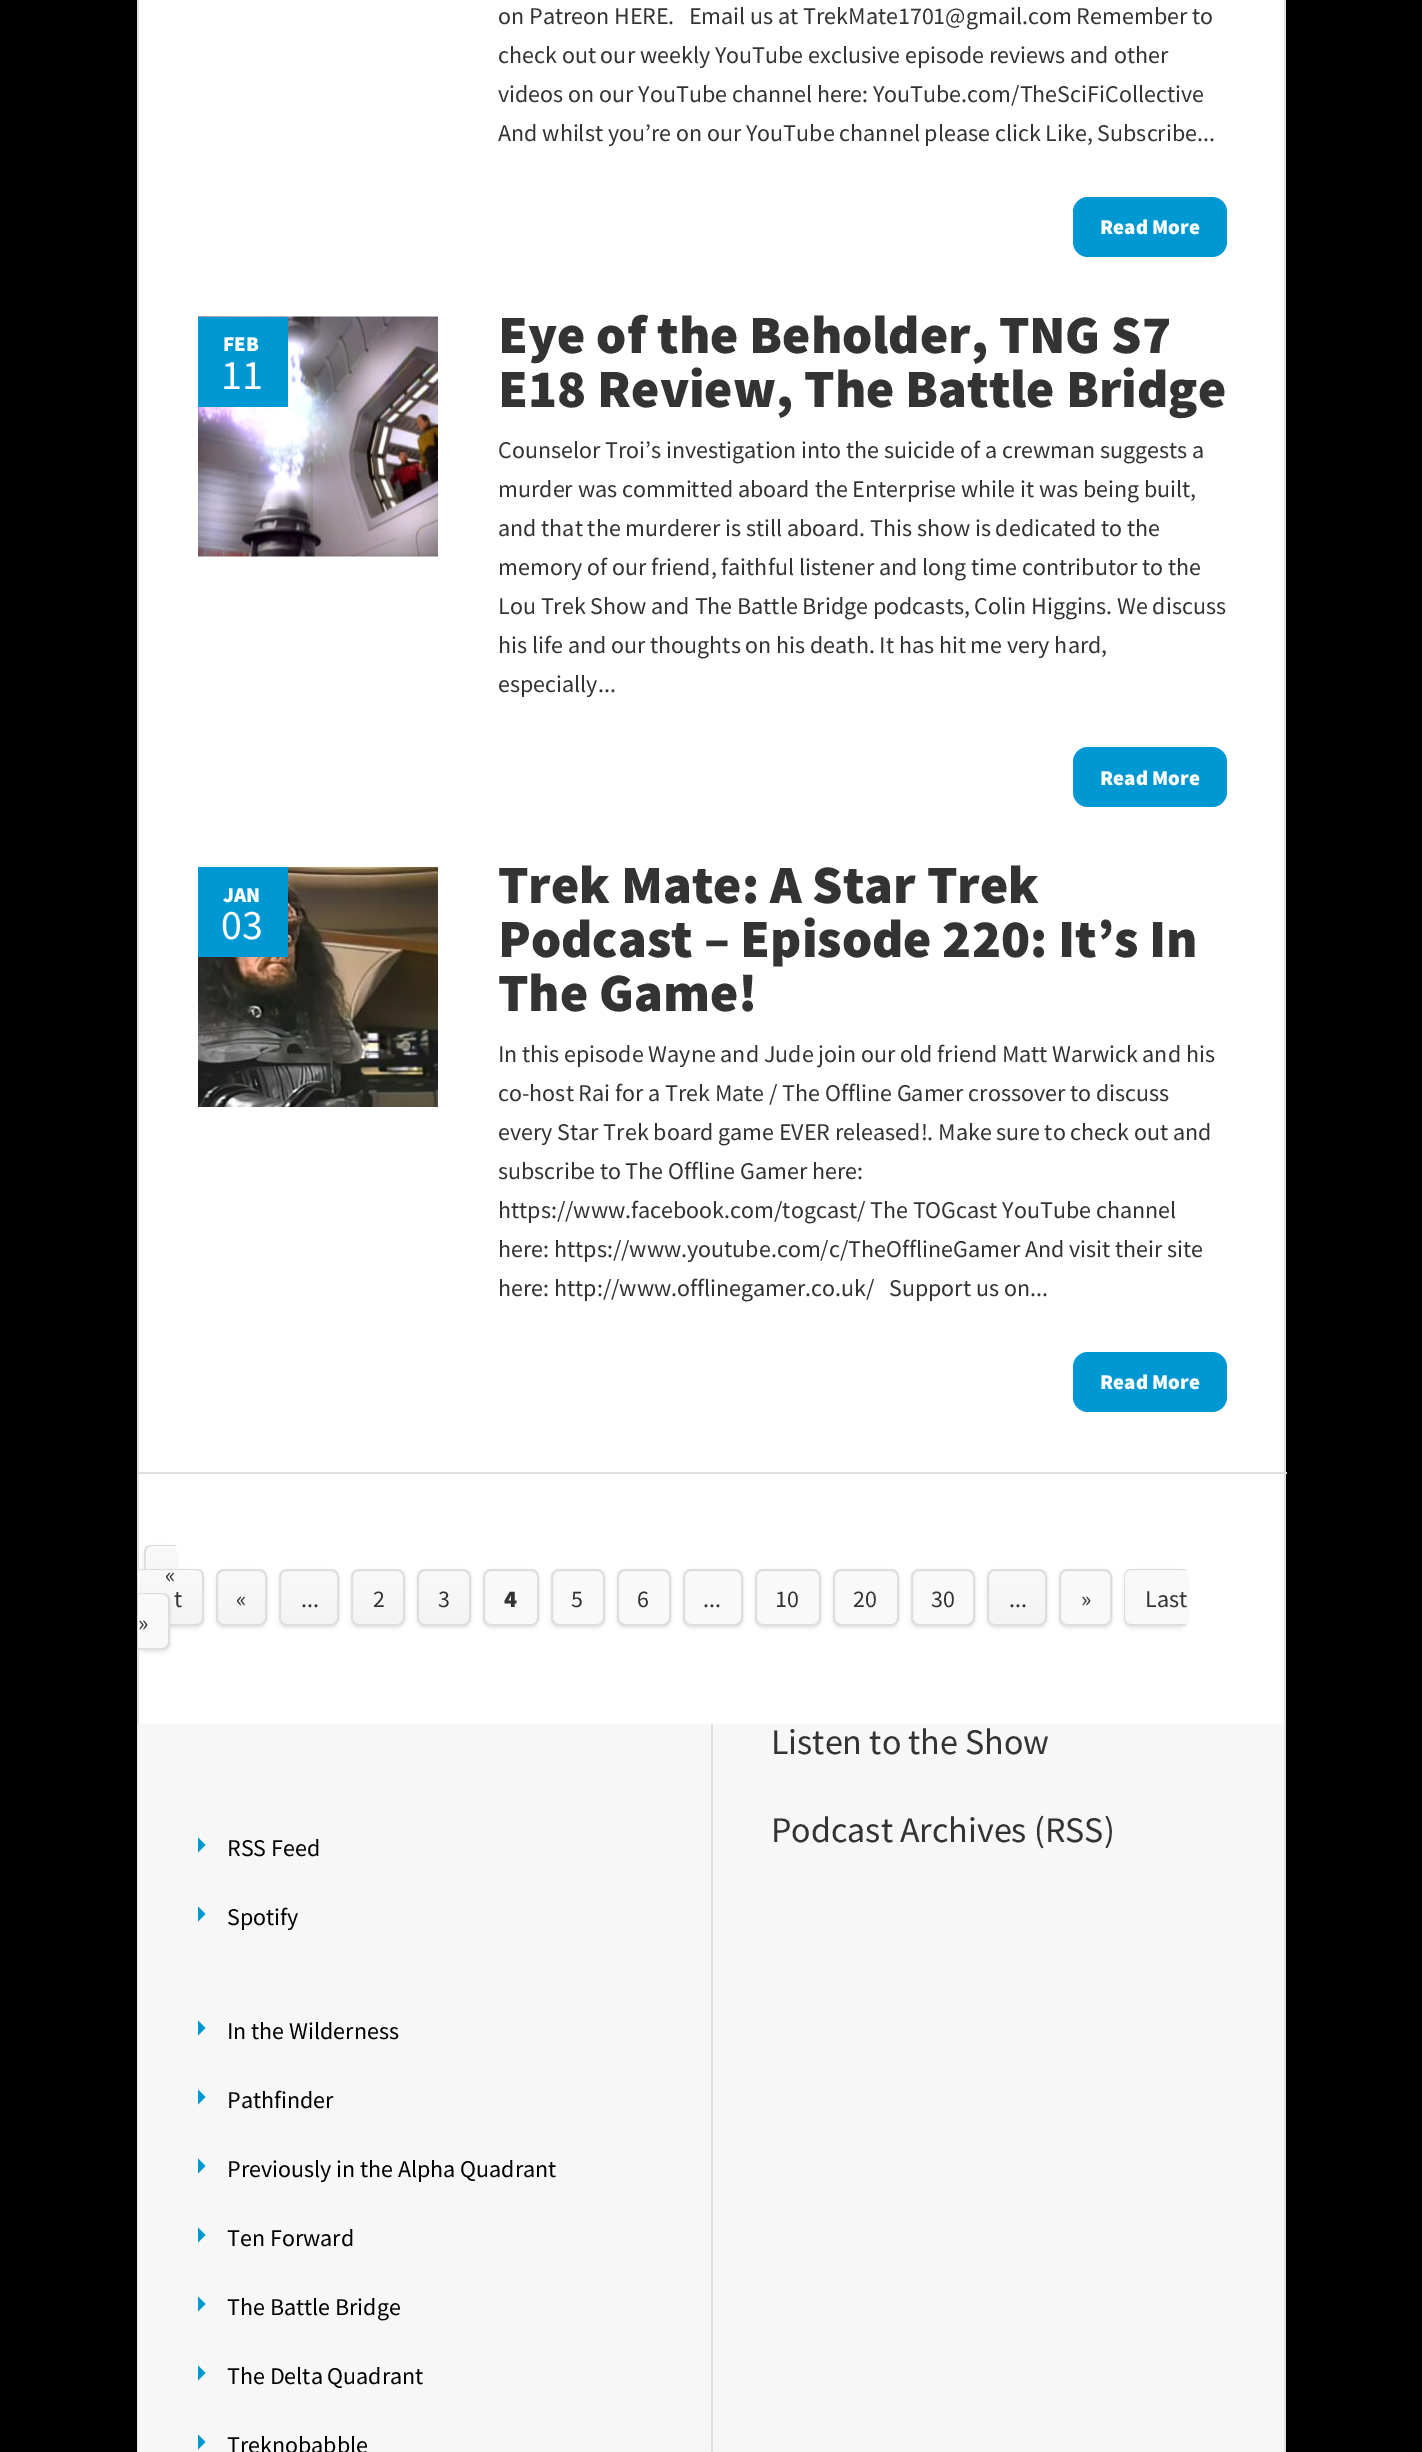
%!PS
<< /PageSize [1422 2452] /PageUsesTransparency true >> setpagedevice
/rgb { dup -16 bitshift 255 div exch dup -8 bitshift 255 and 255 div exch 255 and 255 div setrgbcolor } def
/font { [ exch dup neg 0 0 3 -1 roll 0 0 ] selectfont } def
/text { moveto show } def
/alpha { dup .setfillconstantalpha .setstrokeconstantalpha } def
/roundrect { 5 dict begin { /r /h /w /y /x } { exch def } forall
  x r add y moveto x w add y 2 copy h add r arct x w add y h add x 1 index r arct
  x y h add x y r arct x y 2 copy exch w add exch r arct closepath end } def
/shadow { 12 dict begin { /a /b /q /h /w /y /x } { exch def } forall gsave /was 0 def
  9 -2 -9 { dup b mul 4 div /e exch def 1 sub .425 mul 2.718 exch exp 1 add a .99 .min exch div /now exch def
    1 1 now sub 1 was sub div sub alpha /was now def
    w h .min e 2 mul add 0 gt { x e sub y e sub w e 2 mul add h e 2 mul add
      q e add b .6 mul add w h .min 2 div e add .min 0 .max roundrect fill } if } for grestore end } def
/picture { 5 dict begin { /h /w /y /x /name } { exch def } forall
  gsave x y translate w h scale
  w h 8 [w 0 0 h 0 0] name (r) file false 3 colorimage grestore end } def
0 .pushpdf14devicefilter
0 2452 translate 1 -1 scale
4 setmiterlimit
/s1 { /SourceSansPro-Regular 24 font 16#333333 rgb } def
/s2 { /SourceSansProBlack-Black 21 font 16#FFFFFF rgb } def
/s3 { /SourceSansPro-Regular 42 font 16#FFFFFF rgb } def
/s4 { /SourceSansProBlack-Black 54 font 16#333333 rgb } def
/s5 { /SourceSansProBlack-Black 24 font 16#333333 rgb } def
/s6 { /SourceSansPro-Regular 36 font 16#333333 rgb } def
/s7 { /SourceSansPro-Regular 24 font 16#000000 rgb } def
16#000000 rgb
0 0 1422 2452 rectfill
16#FFFFFF rgb
139 0 1145 1724 rectfill
16#E0E0E0 rgb
1284 0 2 2452 rectfill
137 0 2 2452 rectfill
138 1472 1149 2 rectfill
s1
(on Patreon HERE.   Email us at TrekMate1701@gmail.com Remember to) 498 24 text
(check out our weekly YouTube exclusive episode reviews and other) 498 63 text
(videos on our YouTube channel here: YouTube.com/TheSciFiCollective) 498 102 text
(And whilst you’re on our YouTube channel please click Like, Subscribe...) 498 141 text
16#0098D3 rgb
1073 197 154 60 15 roundrect fill
s2
(Read More) 1100 234 text
(pic1.raw) 198 316 240 241 picture
16#0098D3 rgb
198 317 90 90 rectfill
s2
(FEB) 223 351 text
s3
(11) 221 389 text
s4
(Eye of the Beholder, TNG S7) 498 353 text
(E18 Review, The Battle Bridge) 498 407 text
s1
(Counselor Troi’s investigation into the suicide of a crewman suggests a) 498 458 text
(murder was committed aboard the Enterprise while it was being built,) 498 497 text
(and that the murderer is still aboard. This show is dedicated to the) 498 536 text
(memory of our friend, faithful listener and long time contributor to the) 498 575 text
(Lou Trek Show and The Battle Bridge podcasts, Colin Higgins. We discuss) 498 614 text
(his life and our thoughts on his death. It has hit me very hard,) 498 653 text
(especially...) 498 692 text
16#0098D3 rgb
1073 747 154 60 15 roundrect fill
s2
(Read More) 1100 785 text
(pic2.raw) 198 867 240 240 picture
16#0098D3 rgb
198 867 90 90 rectfill
s2
(JAN) 223 902 text
s3
(03) 221 939 text
s4
(Trek Mate: A Star Trek) 498 903 text
(Podcast – Episode 220: It’s In) 498 957 text
(The Game!) 498 1011 text
s1
(In this episode Wayne and Jude join our old friend Matt Warwick and his) 498 1062 text
(co-host Rai for a Trek Mate / The Offline Gamer crossover to discuss) 498 1101 text
(every Star Trek board game EVER released!. Make sure to check out and) 498 1140 text
(subscribe to The Offline Gamer here:) 498 1179 text
(https://www.facebook.com/togcast/ The TOGcast YouTube channel) 498 1218 text
(here: https://www.youtube.com/c/TheOfflineGamer And visit their site) 498 1257 text
(here: http://www.offlinegamer.co.uk/   Support us on...) 498 1296 text
16#0098D3 rgb
1073 1352 154 60 15 roundrect fill
s2
(Read More) 1100 1389 text
16#000000 rgb
144 1547 32 57 8 2 0.1 shadow
gsave
152 1545 moveto 176 1545 lineto 176 1602 lineto 152 1602 lineto 147.5 1602 144 1598.5 144 1594 curveto 144 1553 lineto 144 1548.5 147.5 1545 152 1545 curveto closepath clip newpath
gsave 144 1547 moveto 176 1547 lineto 176 1569 lineto 144 1569 lineto closepath clip newpath
<< /ShadingType 2 /ColorSpace /DeviceRGB /Coords [161 1547 161 1601] /Extend [true true] /Function << /FunctionType 2 /Domain [0 1] /C0 [0.976 0.976 0.976] /C1 [0.957 0.957 0.957] /N 1 >> >> shfill grestore
grestore
0.4 alpha
16#FFFFFF rgb
153 1548 moveto 176 1548 lineto 176 1547 lineto 152 1547 lineto 149 1547 146 1550 146 1553 curveto 146 1595 lineto 146 1597 147 1599 149 1600 curveto 148 1599 147 1597 147 1596 curveto 147 1554 lineto 147 1551 150 1548 153 1548 curveto closepath fill
gsave
152 1545 moveto 176 1545 lineto 176 1602 lineto 152 1602 lineto 147.5 1602 144 1598.5 144 1594 curveto 144 1553 lineto 144 1548.5 147.5 1545 152 1545 curveto closepath clip newpath
1 alpha
gsave 144 1545 moveto 176 1545 lineto 176 1547 lineto 144 1547 lineto closepath clip newpath
<< /ShadingType 2 /ColorSpace /DeviceRGB /Coords [161 1493 161 1547] /Extend [true true] /Function << /FunctionType 2 /Domain [0 1] /C0 [0.976 0.976 0.976] /C1 [0.957 0.957 0.957] /N 1 >> >> shfill grestore
grestore
1 alpha
16#E0DDDD rgb
152 1545 moveto 176 1545 lineto 176 1602 lineto 152 1602 lineto 147 1602 144 1599 144 1594 curveto 144 1552 lineto 144 1548 147 1545 152 1545 curveto closepath 152 1546 moveto 176 1546 lineto 176 1600 lineto 152 1600 lineto 148 1600 146 1598 146 1594 curveto 146 1552 lineto 146 1549 148 1546 152 1546 curveto closepath eofill
16#000000 rgb
138 1571 66 57 8 2 0.1 shadow
gsave
138 1569 moveto 196 1569 lineto 200.5 1569 204 1572.5 204 1577 curveto 204 1618 lineto 204 1622.5 200.5 1626 196 1626 curveto 138 1626 lineto closepath clip newpath
gsave 138 1571 moveto 204 1571 lineto 204 1625 lineto 138 1625 lineto closepath clip newpath
<< /ShadingType 2 /ColorSpace /DeviceRGB /Coords [170 1571 170 1625] /Extend [true true] /Function << /FunctionType 2 /Domain [0 1] /C0 [0.976 0.976 0.976] /C1 [0.957 0.957 0.957] /N 1 >> >> shfill grestore
grestore
0.4 alpha
16#FFFFFF rgb
140 1572 moveto 198 1572 lineto 199 1572 201 1573 202 1574 curveto 201 1572 199 1571 197 1571 curveto 138 1571 lineto 138 1625 lineto 140 1625 lineto closepath fill
gsave
138 1569 moveto 196 1569 lineto 200.5 1569 204 1572.5 204 1577 curveto 204 1618 lineto 204 1622.5 200.5 1626 196 1626 curveto 138 1626 lineto closepath clip newpath
1 alpha
gsave 138 1569 moveto 204 1569 lineto 204 1571 lineto 138 1571 lineto closepath clip newpath
<< /ShadingType 2 /ColorSpace /DeviceRGB /Coords [170 1517 170 1571] /Extend [true true] /Function << /FunctionType 2 /Domain [0 1] /C0 [0.976 0.976 0.976] /C1 [0.957 0.957 0.957] /N 1 >> >> shfill grestore
grestore
1 alpha
16#E0DDDD rgb
138 1569 moveto 196 1569 lineto 201 1569 204 1572 204 1576 curveto 204 1618 lineto 204 1623 201 1626 196 1626 curveto 138 1626 lineto closepath 138 1570 moveto 196 1570 lineto 200 1570 202 1573 202 1576 curveto 202 1618 lineto 202 1622 200 1624 196 1624 curveto 138 1624 lineto closepath eofill
s1
(«) 165 1583 text
(t) 174 1607 text
16#000000 rgb
216 1571 51 57 8 2 0.1 shadow
gsave
216 1569 51 57 8 roundrect clip newpath
gsave 216 1571 moveto 267 1571 lineto 267 1625 lineto 216 1625 lineto closepath clip newpath
<< /ShadingType 2 /ColorSpace /DeviceRGB /Coords [242 1571 242 1625] /Extend [true true] /Function << /FunctionType 2 /Domain [0 1] /C0 [0.976 0.976 0.976] /C1 [0.957 0.957 0.957] /N 1 >> >> shfill grestore
grestore
0.4 alpha
16#FFFFFF rgb
225 1572 moveto 261 1572 lineto 262 1572 264 1573 265 1574 curveto 264 1572 262 1571 260 1571 curveto 224 1571 lineto 221 1571 218 1574 218 1577 curveto 218 1619 lineto 218 1621 219 1623 221 1624 curveto 220 1623 219 1621 219 1620 curveto 219 1578 lineto 219 1575 222 1572 225 1572 curveto closepath fill
1 alpha
16#E0DDDD rgb
2 setlinewidth
217 1570 49 55 7 roundrect stroke
s1
(«) 236 1607 text
16#000000 rgb
279 1571 60 57 8 2 0.1 shadow
gsave
279 1569 60 57 8 roundrect clip newpath
gsave 279 1571 moveto 339 1571 lineto 339 1625 lineto 279 1625 lineto closepath clip newpath
<< /ShadingType 2 /ColorSpace /DeviceRGB /Coords [309 1571 309 1625] /Extend [true true] /Function << /FunctionType 2 /Domain [0 1] /C0 [0.976 0.976 0.976] /C1 [0.957 0.957 0.957] /N 1 >> >> shfill grestore
grestore
0.4 alpha
16#FFFFFF rgb
288 1572 moveto 333 1572 lineto 334 1572 336 1573 337 1574 curveto 336 1572 334 1571 332 1571 curveto 287 1571 lineto 284 1571 281 1574 281 1577 curveto 281 1619 lineto 281 1621 282 1623 284 1624 curveto 283 1623 282 1621 282 1620 curveto 282 1578 lineto 282 1575 285 1572 288 1572 curveto closepath fill
1 alpha
16#E0DDDD rgb
280 1570 58 55 7 roundrect stroke
s1
(...) 301 1607 text
16#000000 rgb
351 1571 54 57 8 2 0.1 shadow
gsave
351 1569 54 57 8 roundrect clip newpath
gsave 351 1571 moveto 405 1571 lineto 405 1625 lineto 351 1625 lineto closepath clip newpath
<< /ShadingType 2 /ColorSpace /DeviceRGB /Coords [378 1571 378 1625] /Extend [true true] /Function << /FunctionType 2 /Domain [0 1] /C0 [0.976 0.976 0.976] /C1 [0.957 0.957 0.957] /N 1 >> >> shfill grestore
grestore
0.4 alpha
16#FFFFFF rgb
360 1572 moveto 399 1572 lineto 400 1572 402 1573 403 1574 curveto 402 1572 400 1571 398 1571 curveto 359 1571 lineto 356 1571 353 1574 353 1577 curveto 353 1619 lineto 353 1621 354 1623 356 1624 curveto 355 1623 354 1621 354 1620 curveto 354 1578 lineto 354 1575 357 1572 360 1572 curveto closepath fill
1 alpha
16#E0DDDD rgb
352 1570 52 55 7 roundrect stroke
s1
(2) 373 1607 text
16#000000 rgb
417 1571 54 57 8 2 0.1 shadow
gsave
417 1569 54 57 8 roundrect clip newpath
gsave 417 1571 moveto 471 1571 lineto 471 1625 lineto 417 1625 lineto closepath clip newpath
<< /ShadingType 2 /ColorSpace /DeviceRGB /Coords [444 1571 444 1625] /Extend [true true] /Function << /FunctionType 2 /Domain [0 1] /C0 [0.976 0.976 0.976] /C1 [0.957 0.957 0.957] /N 1 >> >> shfill grestore
grestore
0.4 alpha
16#FFFFFF rgb
426 1572 moveto 465 1572 lineto 466 1572 468 1573 469 1574 curveto 468 1572 466 1571 464 1571 curveto 425 1571 lineto 422 1571 419 1574 419 1577 curveto 419 1619 lineto 419 1621 420 1623 422 1624 curveto 421 1623 420 1621 420 1620 curveto 420 1578 lineto 420 1575 423 1572 426 1572 curveto closepath fill
1 alpha
16#E0DDDD rgb
418 1570 52 55 7 roundrect stroke
s1
(3) 438 1607 text
16#000000 rgb
483 1571 56 57 8 2 0.1 shadow
16#F9F9F9 rgb
484 1570 54 55 7 roundrect gsave fill grestore
16#E0DDDD rgb
stroke
s5
(4) 504 1607 text
16#000000 rgb
551 1571 54 57 8 2 0.1 shadow
16#F9F9F9 rgb
552 1570 52 55 7 roundrect gsave fill grestore
16#E0DDDD rgb
stroke
s1
(5) 571 1607 text
16#000000 rgb
617 1571 54 57 8 2 0.1 shadow
16#F9F9F9 rgb
618 1570 52 55 7 roundrect gsave fill grestore
16#E0DDDD rgb
stroke
s1
(6) 637 1607 text
16#000000 rgb
683 1571 60 57 8 2 0.1 shadow
16#F9F9F9 rgb
684 1570 58 55 7 roundrect gsave fill grestore
16#E0DDDD rgb
stroke
s1
(...) 703 1607 text
16#000000 rgb
755 1571 66 57 8 2 0.1 shadow
16#F9F9F9 rgb
756 1570 64 55 7 roundrect gsave fill grestore
16#E0DDDD rgb
stroke
s1
(10) 775 1607 text
16#000000 rgb
833 1571 66 57 8 2 0.1 shadow
16#F9F9F9 rgb
834 1570 64 55 7 roundrect gsave fill grestore
16#E0DDDD rgb
stroke
s1
(20) 853 1607 text
16#000000 rgb
911 1571 64 57 8 2 0.1 shadow
16#F9F9F9 rgb
912 1570 62 55 7 roundrect gsave fill grestore
16#E0DDDD rgb
stroke
s1
(30) 931 1607 text
16#000000 rgb
987 1571 60 57 8 2 0.1 shadow
gsave
987 1569 60 57 8 roundrect clip newpath
gsave 987 1571 moveto 1047 1571 lineto 1047 1625 lineto 987 1625 lineto closepath clip newpath
<< /ShadingType 2 /ColorSpace /DeviceRGB /Coords [1017 1571 1017 1625] /Extend [true true] /Function << /FunctionType 2 /Domain [0 1] /C0 [0.976 0.976 0.976] /C1 [0.957 0.957 0.957] /N 1 >> >> shfill grestore
grestore
0.4 alpha
16#FFFFFF rgb
996 1572 moveto 1041 1572 lineto 1042 1572 1044 1573 1045 1574 curveto 1044 1572 1042 1571 1040 1571 curveto 995 1571 lineto 992 1571 989 1574 989 1577 curveto 989 1619 lineto 989 1621 990 1623 992 1624 curveto 991 1623 990 1621 990 1620 curveto 990 1578 lineto 990 1575 993 1572 996 1572 curveto closepath fill
1 alpha
16#E0DDDD rgb
988 1570 58 55 7 roundrect stroke
s1
(...) 1009 1607 text
16#000000 rgb
1059 1571 53 57 8 2 0.1 shadow
16#F9F9F9 rgb
1060 1570 51 55 7 roundrect gsave fill grestore
16#E0DDDD rgb
stroke
s1
(») 1081 1607 text
16#000000 rgb
1124 1571 63 57 8 2 0.1 shadow
16#F9F9F9 rgb
1132 1569 moveto 1187 1569 lineto 1187 1626 lineto 1132 1626 lineto 1127.5 1626 1124 1622.5 1124 1618 curveto 1124 1577 lineto 1124 1572.5 1127.5 1569 1132 1569 curveto closepath fill
gsave
1132 1569 moveto 1187 1569 lineto 1187 1626 lineto 1132 1626 lineto 1127.5 1626 1124 1622.5 1124 1618 curveto 1124 1577 lineto 1124 1572.5 1127.5 1569 1132 1569 curveto closepath clip newpath
gsave 1124 1569 moveto 1187 1569 lineto 1187 1571 lineto 1124 1571 lineto closepath clip newpath
<< /ShadingType 2 /ColorSpace /DeviceRGB /Coords [1156 1517 1156 1571] /Extend [true true] /Function << /FunctionType 2 /Domain [0 1] /C0 [0.976 0.976 0.976] /C1 [0.957 0.957 0.957] /N 1 >> >> shfill grestore
grestore
16#E0DDDD rgb
1131 1569 moveto 1186 1569 lineto 1186 1626 lineto 1131 1626 lineto 1127 1626 1124 1623 1124 1618 curveto 1124 1576 lineto 1124 1572 1127 1569 1131 1569 curveto closepath 1131 1570 moveto 1186 1570 lineto 1186 1624 lineto 1131 1624 lineto 1128 1624 1125 1622 1125 1618 curveto 1125 1576 lineto 1125 1573 1128 1570 1131 1570 curveto closepath eofill
s1
(Last) 1145 1607 text
16#000000 rgb
138 1595 32 57 8 2 0.1 shadow
16#F9F9F9 rgb
138 1593 moveto 162 1593 lineto 166.5 1593 170 1596.5 170 1601 curveto 170 1642 lineto 170 1646.5 166.5 1650 162 1650 curveto 138 1650 lineto closepath fill
gsave
138 1593 moveto 162 1593 lineto 166.5 1593 170 1596.5 170 1601 curveto 170 1642 lineto 170 1646.5 166.5 1650 162 1650 curveto 138 1650 lineto closepath clip newpath
gsave 138 1593 moveto 170 1593 lineto 170 1595 lineto 138 1595 lineto closepath clip newpath
<< /ShadingType 2 /ColorSpace /DeviceRGB /Coords [153 1541 153 1595] /Extend [true true] /Function << /FunctionType 2 /Domain [0 1] /C0 [0.976 0.976 0.976] /C1 [0.957 0.957 0.957] /N 1 >> >> shfill grestore
grestore
16#E0DDDD rgb
138 1593 moveto 162 1593 lineto 166 1593 170 1596 170 1600 curveto 170 1642 lineto 170 1647 166 1650 162 1650 curveto 138 1650 lineto closepath 138 1594 moveto 162 1594 lineto 165 1594 168 1597 168 1600 curveto 168 1642 lineto 168 1646 165 1648 162 1648 curveto 138 1648 lineto closepath eofill
s1
(») 138 1631 text
16#F7F7F7 rgb
138 1724 1146 728 rectfill
16#E0E0E0 rgb
711 1724 2 728 rectfill
s6
(Listen to the Show) 771 1754 text
(Podcast Archives \(RSS\)) 771 1842 text
16#0098D3 rgb
198 1852.5 moveto 198 1837.5 lineto 205.5 1845 lineto closepath fill
s7
(RSS Feed) 227 1856 text
16#0098D3 rgb
198 1921.5 moveto 198 1906.5 lineto 205.5 1914 lineto closepath fill
s7
(Spotify) 227 1925 text
16#0098D3 rgb
198 2035.5 moveto 198 2020.5 lineto 205.5 2028 lineto closepath fill
s7
(In the Wilderness) 227 2039 text
16#0098D3 rgb
198 2104.5 moveto 198 2089.5 lineto 205.5 2097 lineto closepath fill
s7
(Pathfinder) 227 2108 text
16#0098D3 rgb
198 2173.5 moveto 198 2158.5 lineto 205.5 2166 lineto closepath fill
s7
(Previously in the Alpha Quadrant) 227 2177 text
16#0098D3 rgb
198 2242.5 moveto 198 2227.5 lineto 205.5 2235 lineto closepath fill
s7
(Ten Forward) 227 2246 text
16#0098D3 rgb
198 2311.5 moveto 198 2296.5 lineto 205.5 2304 lineto closepath fill
s7
(The Battle Bridge) 227 2315 text
16#0098D3 rgb
198 2380.5 moveto 198 2365.5 lineto 205.5 2373 lineto closepath fill
s7
(The Delta Quadrant) 227 2384 text
16#0098D3 rgb
198 2449.5 moveto 198 2434.5 lineto 205.5 2442 lineto closepath fill
s7
(Treknobabble) 227 2453 text
.poppdf14devicefilter showpage
